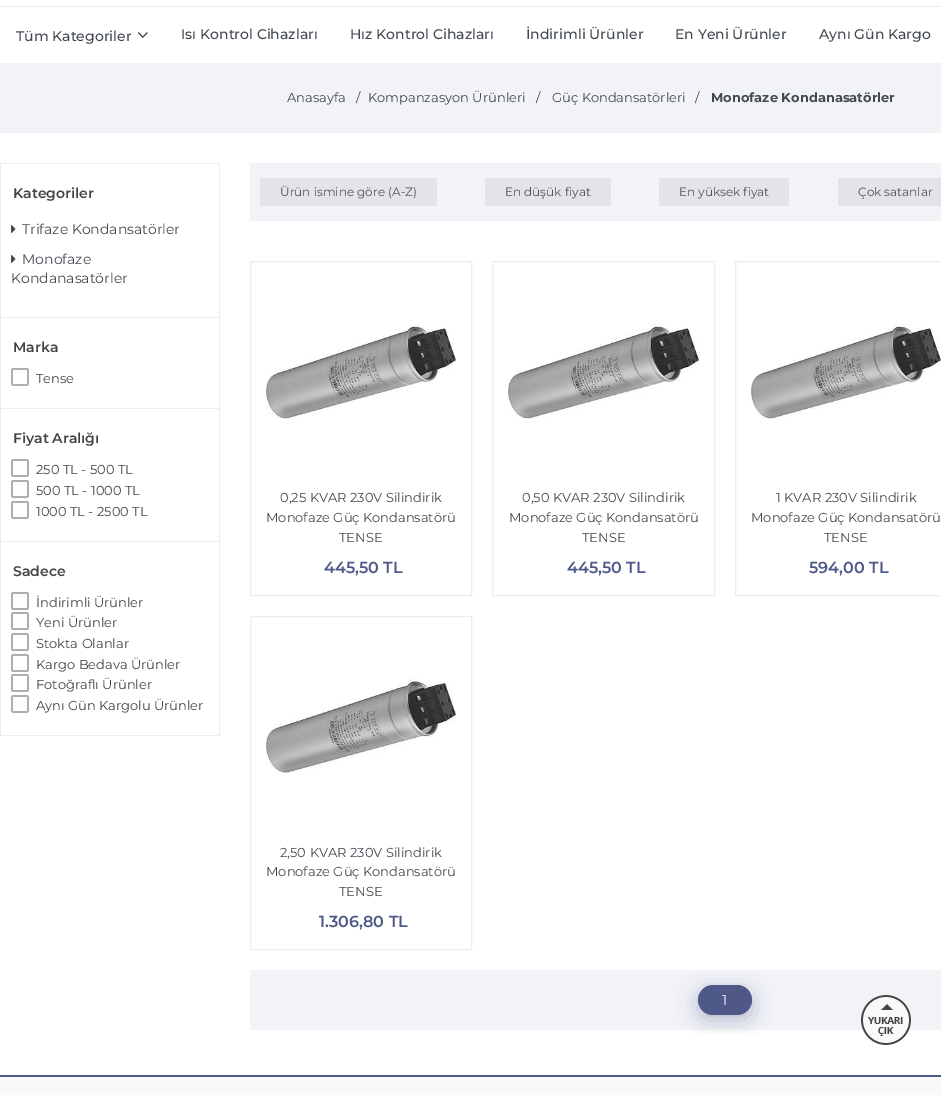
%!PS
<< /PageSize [941 1095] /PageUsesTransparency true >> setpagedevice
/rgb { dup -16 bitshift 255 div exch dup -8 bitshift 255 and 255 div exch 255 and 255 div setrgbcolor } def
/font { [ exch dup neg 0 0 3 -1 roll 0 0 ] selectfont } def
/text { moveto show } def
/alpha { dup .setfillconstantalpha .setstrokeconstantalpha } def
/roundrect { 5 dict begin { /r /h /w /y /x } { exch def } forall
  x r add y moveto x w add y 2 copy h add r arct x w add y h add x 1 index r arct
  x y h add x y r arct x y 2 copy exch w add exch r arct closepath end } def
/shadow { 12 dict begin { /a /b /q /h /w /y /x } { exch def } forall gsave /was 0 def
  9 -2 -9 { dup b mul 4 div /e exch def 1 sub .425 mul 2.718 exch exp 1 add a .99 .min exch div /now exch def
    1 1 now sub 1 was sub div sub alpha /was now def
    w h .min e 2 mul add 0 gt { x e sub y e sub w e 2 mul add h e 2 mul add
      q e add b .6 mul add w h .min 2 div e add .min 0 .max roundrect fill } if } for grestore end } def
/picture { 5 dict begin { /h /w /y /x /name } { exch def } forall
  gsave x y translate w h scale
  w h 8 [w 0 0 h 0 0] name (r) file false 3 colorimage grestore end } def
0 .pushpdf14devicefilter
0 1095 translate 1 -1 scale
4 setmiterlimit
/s1 { /Montserrat-Medium 14 font 16#434950 rgb } def
/s2 { /Montserrat-Regular 13 font 16#434950 rgb } def
/s3 { /Montserrat-Regular 13 font 16#444444 rgb } def
/s4 { /Montserrat-Bold 13 font 16#434950 rgb } def
/s5 { /Montserrat-SemiBold 14 font 16#444444 rgb } def
/s6 { /Montserrat-Regular 14 font 16#434950 rgb } def
/s7 { /Montserrat-Regular 12 font 16#505558 rgb } def
/s8 { /Montserrat-SemiBold 16 font 16#4E5988 rgb } def
/s9 { /Montserrat-Regular 14 font 16#FFFFFF rgb } def
16#FFFFFF rgb
0 0 941 1095 rectfill
16#EBEEF0 rgb
0 6 941 1 rectfill
s1
(Tüm Kategoriler) 16 41 text
(pic1.raw) 137 32 11 6 picture
(Isı Kontrol Cihazları) 181 39 text
(Hız Kontrol Cihazları) 350 39 text
(İndirimli Ürünler) 526 39 text
(En Yeni Ürünler) 675 39 text
(Aynı Gün Kargo) 819 39 text
16#F2F3F7 rgb
250 970 691 60 rectfill
(pic2.raw) 861 995 50 50 picture
0 63 941 70 rectfill
s2
(Anasayfa) 287 102 text
s3
(/) 356 102 text
s2
(Kompanzasyon Ürünleri) 368 102 text
s3
(/) 536 102 text
s2
(Güç Kondansatörleri) 552 102 text
s3
(/) 695 102 text
s4
(Monofaze Kondanasatörler) 711 102 text
16#EBEEF0 rgb
219 163 1 573 rectfill
0 735 220 1 rectfill
0 163 1 573 rectfill
1 163 218 1 rectfill
s5
(Kategoriler) 13 198 text
(pic3.raw) 11 225 5 8 picture
s6
(Trifaze Kondansatörler) 22 234 text
(pic3.raw) 11 255 5 8 picture
(Monofaze) 22 264 text
(Kondanasatörler) 11 283 text
16#EBEEF0 rgb
1 317 218 1 rectfill
s5
(Marka) 13 352 text
(pic4.raw) 11 368 18 18 picture
s3
(Tense) 36 383 text
16#EBEEF0 rgb
1 408 218 1 rectfill
s5
(Fiyat Aralığı) 13 443 text
(pic4.raw) 11 459 18 18 picture
s3
(250 TL - 500 TL) 36 474 text
(pic4.raw) 11 480 18 18 picture
(500 TL - 1000 TL) 36 495 text
(pic4.raw) 11 501 18 18 picture
(1000 TL - 2500 TL) 36 516 text
16#EBEEF0 rgb
1 541 218 1 rectfill
s5
(Sadece) 13 576 text
(pic4.raw) 11 592 18 18 picture
s3
(İndirimli Ürünler) 36 607 text
(pic4.raw) 11 612 18 18 picture
(Yeni Ürünler) 36 627 text
(pic4.raw) 11 633 18 18 picture
(Stokta Olanlar) 36 648 text
(pic4.raw) 11 654 18 18 picture
(Kargo Bedava Ürünler) 36 669 text
(pic4.raw) 11 674 18 18 picture
(Fotoğraflı Ürünler) 36 689 text
(pic4.raw) 11 695 18 18 picture
(Aynı Gün Kargolu Ürünler) 36 710 text
16#F2F3F7 rgb
250 163 691 58 rectfill
16#E3E3E8 rgb
260 178 177 28 rectfill
s7
(Ürün ismine göre \(A-Z\)) 280 196 text
16#E3E3E8 rgb
485 178 126 28 rectfill
s7
(En düşük fiyat) 505 196 text
16#E3E3E8 rgb
659 178 130 28 rectfill
s7
(En yüksek fiyat) 679 196 text
16#E3E3E8 rgb
838 178 103 28 rectfill
s7
(Çok satanlar) 858 196 text
16#EBEEF0 rgb
250.5 261.5 221 334 rectstroke
(pic5.raw) 266 323 190 96 picture
s2
(0,25 KVAR 230V Silindirik) 280 502 text
(Monofaze Güç Kondansatörü) 266 522 text
(TENSE) 339 542 text
s8
(445,50 TL) 324 573 text
16#EBEEF0 rgb
492.5 261.5 222 334 rectstroke
(pic6.raw) 508 323 191 96 picture
s2
(0,50 KVAR 230V Silindirik) 522 502 text
(Monofaze Güç Kondansatörü) 509 522 text
(TENSE) 582 542 text
s8
(445,50 TL) 567 573 text
16#EBEEF0 rgb
735.5 261.5 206 334 rectstroke
(pic7.raw) 751 323 190 96 picture
s2
(1 KVAR 230V Silindirik) 776 502 text
(Monofaze Güç Kondansatörü) 751 522 text
(TENSE) 824 542 text
s8
(594,00 TL) 809 573 text
16#EBEEF0 rgb
250.5 616.5 221 333 rectstroke
(pic8.raw) 266 678 190 96 picture
s2
(2,50 KVAR 230V Silindirik) 280 857 text
(Monofaze Güç Kondansatörü) 266 876 text
(TENSE) 339 896 text
s8
(1.306,80 TL) 319 927 text
gsave
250 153 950 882 rectclip
698 990 54 30 15 10 0.35 shadow
grestore
698 985 54 30 15 roundrect fill
s9
(1) 722 1005 text
16#F9F9F9 rgb
0 1077 941 18 rectfill
16#4E5988 rgb
0 1075 941 2 rectfill
.poppdf14devicefilter showpage
